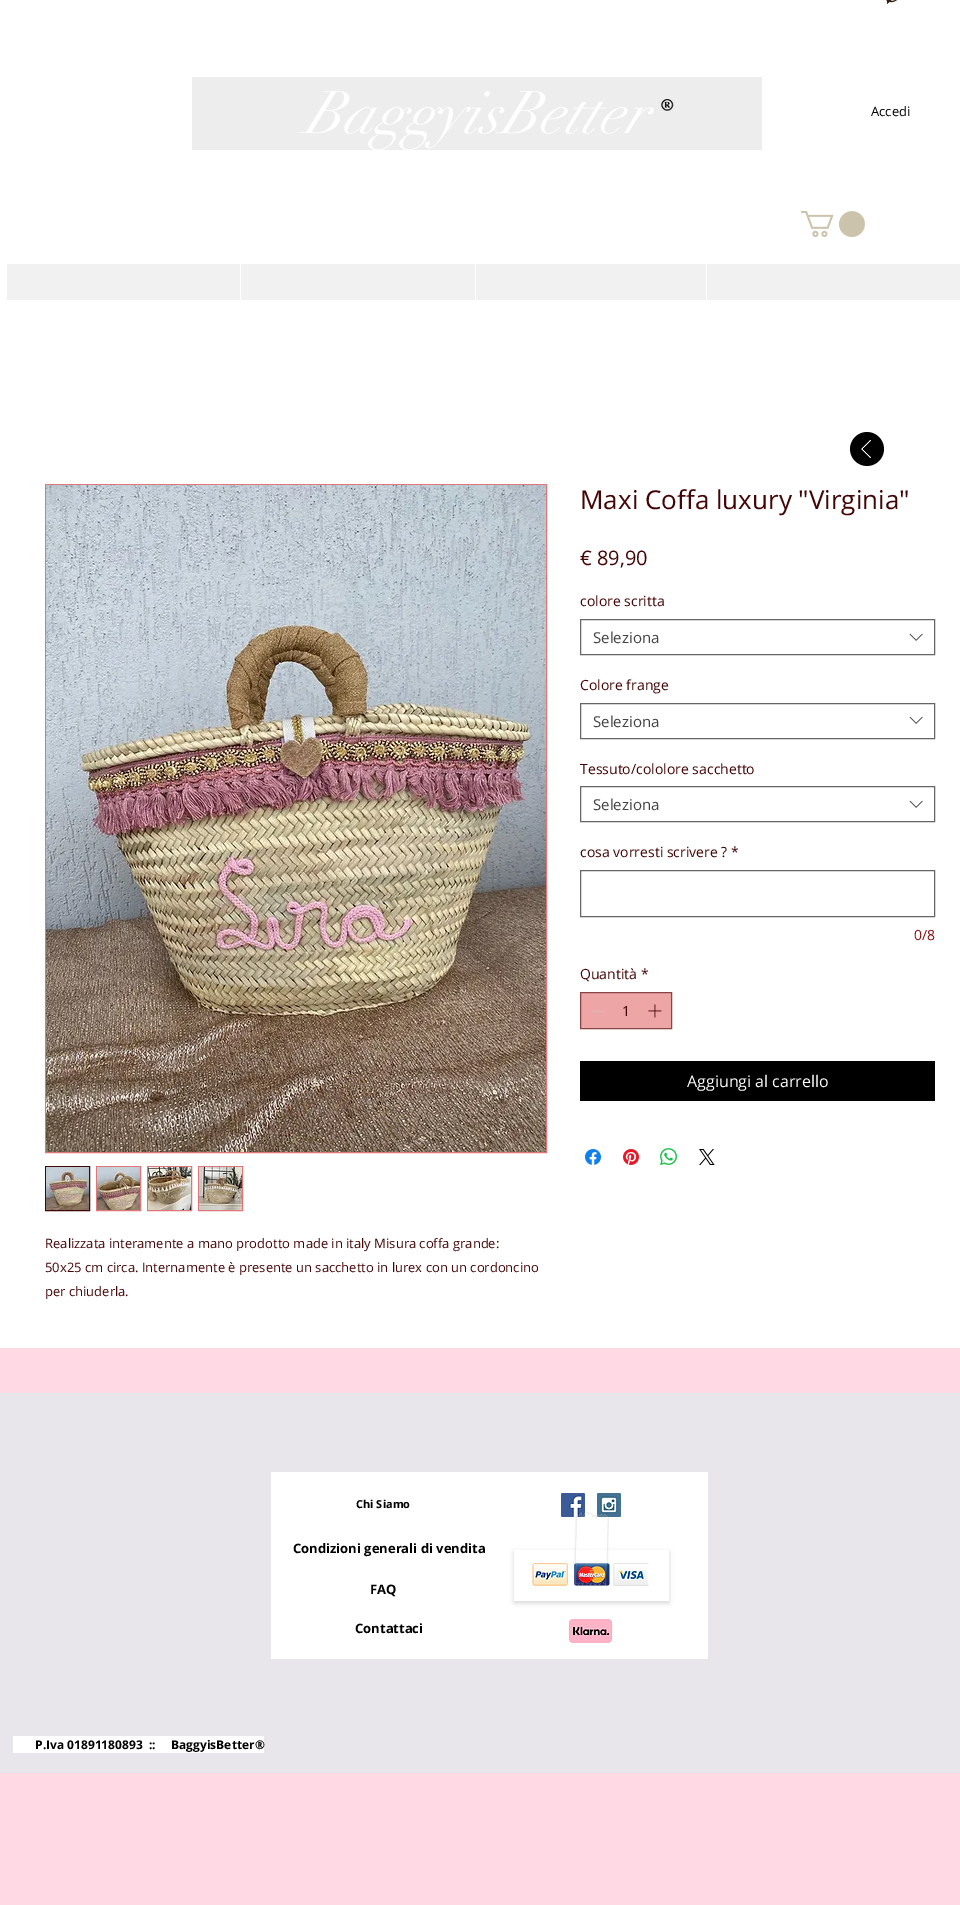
%!PS
<< /PageSize [960 1905] /PageUsesTransparency true >> setpagedevice
/rgb { dup -16 bitshift 255 div exch dup -8 bitshift 255 and 255 div exch 255 and 255 div setrgbcolor } def
/font { [ exch dup neg 0 0 3 -1 roll 0 0 ] selectfont } def
/text { moveto show } def
/alpha { dup .setfillconstantalpha .setstrokeconstantalpha } def
/roundrect { 5 dict begin { /r /h /w /y /x } { exch def } forall
  x r add y moveto x w add y 2 copy h add r arct x w add y h add x 1 index r arct
  x y h add x y r arct x y 2 copy exch w add exch r arct closepath end } def
/shadow { 12 dict begin { /a /b /q /h /w /y /x } { exch def } forall gsave /was 0 def
  9 -2 -9 { dup b mul 4 div /e exch def 1 sub .425 mul 2.718 exch exp 1 add a .99 .min exch div /now exch def
    1 1 now sub 1 was sub div sub alpha /was now def
    w h .min e 2 mul add 0 gt { x e sub y e sub w e 2 mul add h e 2 mul add
      q e add b .6 mul add w h .min 2 div e add .min 0 .max roundrect fill } if } for grestore end } def
/picture { 5 dict begin { /h /w /y /x /name } { exch def } forall
  gsave x y translate w h scale
  w h 8 [w 0 0 h 0 0] name (r) file false 3 colorimage grestore end } def
0 .pushpdf14devicefilter
0 1905 translate 1 -1 scale
4 setmiterlimit
/s1 { /didot-Italic 59 font 16#FFFFFF rgb } def
/s2 { /OpenSans-Regular 13 font 16#000000 rgb } def
/s3 { /OpenSans-Regular 26 font 16#440506 rgb } def
/s4 { /OpenSans-Regular 20 font 16#440506 rgb } def
/s5 { /OpenSans-Regular 14 font 16#440506 rgb } def
/s6 { /OpenSans-Regular 15 font 16#444444 rgb } def
/s7 { /OpenSans-Regular 14 font 16#880A0C rgb } def
/s8 { /OpenSans-Regular 16 font 16#FFFFFF rgb } def
/s9 { /OpenSans-Regular 13 font 16#440506 rgb } def
/s10 { /OpenSans-Bold 11 font 16#000000 rgb } def
/s11 { /OpenSans-Bold 13 font 16#000000 rgb } def
/s12 { /OpenSans-Bold 12 font 16#000000 rgb } def
16#FFD9E4 rgb
0 0 960 1905 rectfill
16#FFFFFF rgb
0 0 960 1348 rectfill
16#342216 rgb
883.5 -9.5 16 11 8 roundrect stroke
887 4 moveto 887 -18 lineto 900 -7 lineto closepath fill
16#EDEDED rgb
192 77 570 73 rectfill
s1
(BaggyisBetter) 305 133 text
(pic1.raw) 659 99 16 12 picture
s2
(Accedi) 871 116 text
(pic2.raw) 801 211 64 26 picture
16#F1F1F1 rgb
7 264 953 36 rectfill
16#FFFFFF rgb
240 264 1 36 rectfill
475 264 1 36 rectfill
706 264 1 36 rectfill
(pic3.raw) 850 432 34 34 picture
s3
(Maxi Coffa luxury "Virginia") 580 509 text
s4
(€ 89,90) 580 565 text
s5
(colore scritta) 580 606 text
16#666666 rgb
580.5 619.5 354 35 rectstroke
s6
(Seleziona) 593 643 text
(pic4.raw) 909 633 14 8 picture
s5
(Colore frange) 580 690 text
16#666666 rgb
580.5 703.5 354 35 rectstroke
s6
(Seleziona) 593 727 text
(pic4.raw) 909 716 14 8 picture
s5
(Tessuto/cololore sacchetto) 580 774 text
16#666666 rgb
580.5 786.5 354 35 rectstroke
s6
(Seleziona) 593 810 text
(pic4.raw) 909 800 14 8 picture
s5
(cosa vorresti scrivere ?) 580 857 text
(*) 731 857 text
16#666666 rgb
580.5 870.5 354 46 rectstroke
s7
(0/8) 914 940 text
s5
(Quantità) 580 979 text
(*) 641 979 text
16#EDA5A6 rgb
580.5 992.5 moveto 671.5 992.5 lineto 671.5 1028.5 lineto 580.5 1028.5 lineto closepath gsave fill grestore
16#884546 rgb
stroke
16#DAB6B7 rgb
592 1011 13 1 rectfill
s5
(1) 622 1016 text
(pic5.raw) 648 1004 14 14 picture
16#000000 rgb
580 1061 355 40 rectfill
s8
(Aggiungi al carrello) 687 1087 text
(pic6.raw) 585 1149 16 16 picture
(pic7.raw) 623 1149 16 16 picture
(pic8.raw) 660 1148 17 17 picture
(pic9.raw) 699 1149 16 16 picture
16#DD7779 rgb
45.5 484.5 501 668 rectstroke
(pic10.raw) 46 485 500 667 picture
16#440506 rgb
45.5 1166.5 44 44 rectstroke
(pic11.raw) 46 1167 43 43 picture
16#DD7779 rgb
96.5 1166.5 44 44 rectstroke
(pic12.raw) 97 1167 43 43 picture
147.5 1166.5 44 44 rectstroke
(pic13.raw) 148 1167 43 43 picture
198.5 1166.5 44 44 rectstroke
(pic14.raw) 199 1167 43 43 picture
s9
(Realizzata interamente a mano prodotto made in italy Misura coffa grande:) 45 1248 text
(50x25 cm circa. Internamente è presente un sacchetto in lurex con un cordoncino) 45 1272 text
(per chiuderla.) 45 1296 text
16#E9E6EB rgb
0 1393 960 380 rectfill
16#FFFFFF rgb
271 1472 437 187 rectfill
s10
(Chi Siamo) 356 1508 text
(pic15.raw) 561 1493 24 24 picture
(pic16.raw) 597 1493 24 24 picture
s11
(Condizioni generali di vendita) 293 1553 text
gsave
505 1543 moveto 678 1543 lineto 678 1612 lineto 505 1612 lineto closepath 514 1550 moveto 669 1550 lineto 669 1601 lineto 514 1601 lineto closepath eoclip newpath
514 1552 155 51 0 2.5 0.15 shadow
grestore
(pic18.raw) 532 1563 117 23 picture
(pic17.raw) 574 1511 35 75 picture
(FAQ) 370 1594 text
(Contattaci) 355 1633 text
(pic19.raw) 568 1619 45 24 picture
16#FFFFFF rgb
13 1736 251 17 rectfill
s12
(P.Iva 01891180893  ::     BaggyisBetter®) 35 1749 text
.poppdf14devicefilter showpage
